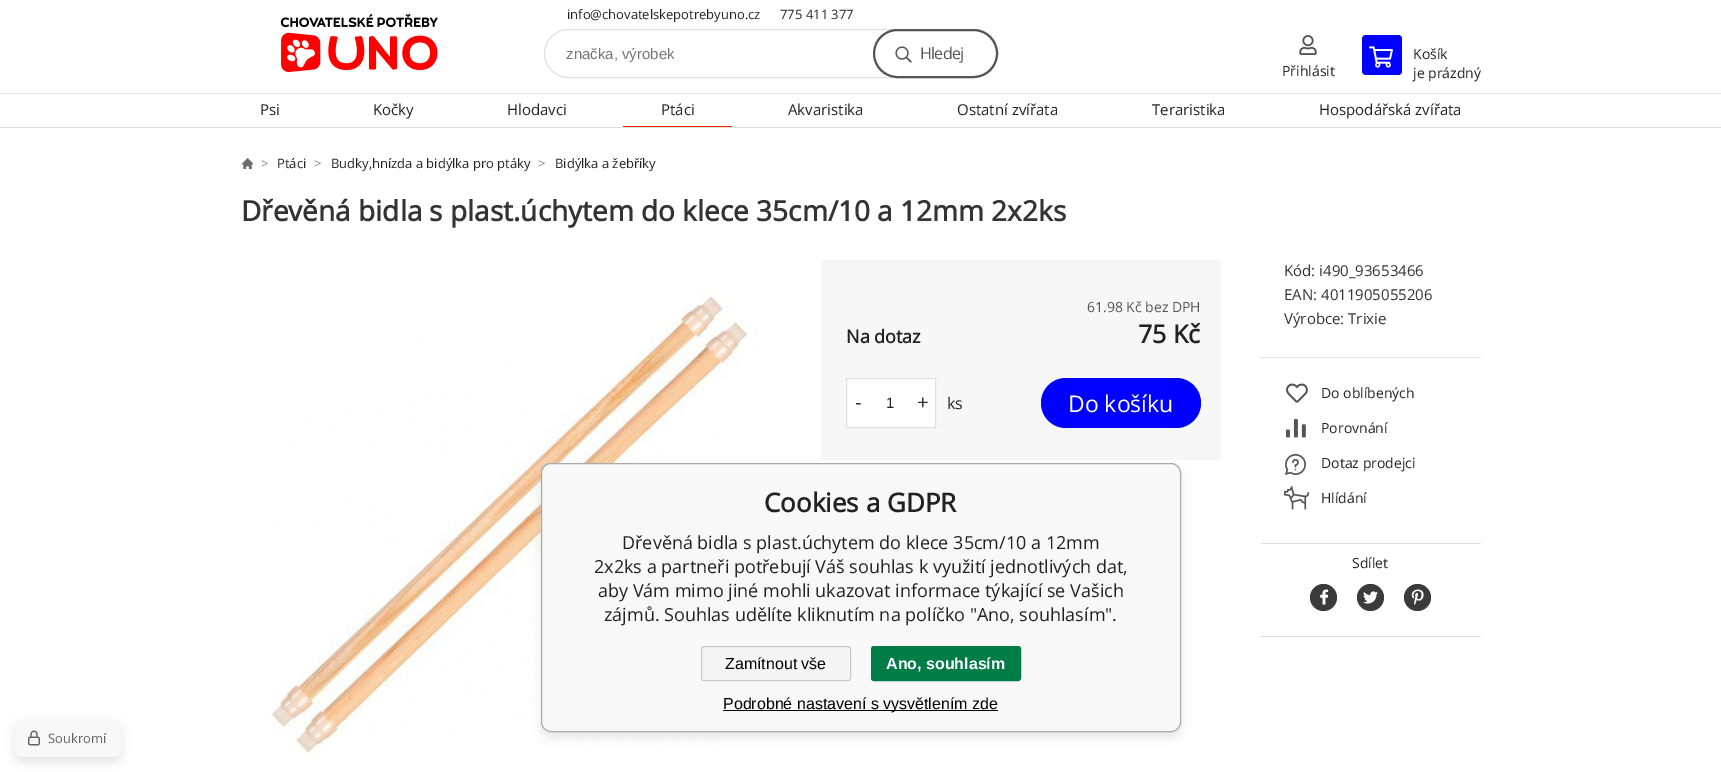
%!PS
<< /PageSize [1721 772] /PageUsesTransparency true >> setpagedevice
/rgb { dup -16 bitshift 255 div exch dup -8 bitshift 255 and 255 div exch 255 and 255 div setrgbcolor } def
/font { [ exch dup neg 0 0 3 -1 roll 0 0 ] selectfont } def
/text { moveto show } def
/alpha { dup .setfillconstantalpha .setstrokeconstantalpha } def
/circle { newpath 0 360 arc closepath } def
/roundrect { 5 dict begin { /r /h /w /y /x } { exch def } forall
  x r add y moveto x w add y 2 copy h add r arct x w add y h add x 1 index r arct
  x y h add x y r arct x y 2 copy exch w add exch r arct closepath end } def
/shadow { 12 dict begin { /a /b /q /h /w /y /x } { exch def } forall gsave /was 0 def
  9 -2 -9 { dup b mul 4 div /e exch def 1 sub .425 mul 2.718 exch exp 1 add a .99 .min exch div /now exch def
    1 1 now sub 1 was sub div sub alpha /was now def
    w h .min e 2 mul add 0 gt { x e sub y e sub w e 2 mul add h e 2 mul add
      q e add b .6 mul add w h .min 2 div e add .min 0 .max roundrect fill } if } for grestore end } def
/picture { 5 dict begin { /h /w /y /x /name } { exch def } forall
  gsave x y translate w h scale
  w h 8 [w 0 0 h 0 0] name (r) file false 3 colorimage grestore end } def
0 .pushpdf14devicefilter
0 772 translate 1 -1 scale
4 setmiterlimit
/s1 { /OpenSans-Regular 13 font 16#222222 rgb } def
/s2 { /LiberationSans-Regular 15 font 16#757575 rgb } def
/s3 { /OpenSans-Regular 14 font 16#222222 rgb } def
/s4 { /OpenSans-Regular 15 font 16#222222 rgb } def
/s5 { /OpenSans-Regular 13 font 16#888888 rgb } def
/s6 { /OpenSans-Bold 28 font 16#333333 rgb } def
/s7 { /OpenSans-Regular 14 font 16#555555 rgb } def
/s8 { /OpenSans-Bold 18 font 16#222222 rgb } def
/s9 { /OpenSans-Bold 25 font 16#222222 rgb } def
/s10 { /LiberationSans-Regular 20 font 16#333333 rgb } def
/s11 { /LiberationSans-Regular 15 font 16#222222 rgb } def
/s12 { /OpenSans-Regular 16 font 16#222222 rgb } def
/s13 { /OpenSans-Regular 23 font 16#FFFFFF rgb } def
/s14 { /OpenSans-Regular 15 font 16#333333 rgb } def
/s15 { /OpenSans-Bold 26 font 16#222222 rgb } def
/s16 { /OpenSans-Regular 18 font 16#222222 rgb } def
/s17 { /LiberationSans-Regular 16 font 16#000000 rgb } def
/s18 { /LiberationSans-Bold 16 font 16#FFFFFF rgb } def
/s19 { /OpenSans-Regular 13 font 16#646464 rgb } def
16#FFFFFF rgb
0 0 1721 772 rectfill
(pic1.raw) 280 13 158 60 picture
s1
(info@chovatelskepotrebyuno.cz) 567 19 text
(775 411 377) 780 19 text
16#E0E0E0 rgb
544.5 29.5 453 48 24 roundrect stroke
s2
(značka, výrobek) 566 59 text
(pic2.raw) 895 46 17 17 picture
16#555555 rgb
2 setlinewidth
874 30 123 47 23.5 roundrect stroke
/OpenSans-Regular 16 font
920 59 moveto -0.75 0 (Hledej) ashow
(pic3.raw) 1299 35 18 20 picture
s3
(Přihlásit) 1282 76 text
16#0000FF rgb
1362 35 40 40 4 roundrect fill
(pic4.raw) 1369 46 24 22 picture
s3
(Košík) 1413 59 text
(je prázdný) 1413 78 text
16#E0E0E0 rgb
0 93 1721 1 rectfill
0 127 1721 1 rectfill
s4
(Psi) 260 115 text
(Kočky) 373 115 text
(Hlodavci) 507 115 text
(Ptáci) 661 115 text
16#ED2602 rgb
623 126 109 1 rectfill
s4
(Akvaristika) 788 115 text
(Ostatní zvířata) 957 115 text
(Teraristika) 1152 115 text
(Hospodářská zvířata) 1319 115 text
(pic5.raw) 241 158 12 11 picture
s5
(>) 261 168 text
s1
(Ptáci) 277 168 text
s5
(>) 314 168 text
s1
(Budky,hnízda a bidýlka pro ptáky) 331 168 text
s5
(>) 538 168 text
s1
(Bidýlka a žebříky) 555 168 text
s6
(Dřevěná bidla s plast.úchytem do klece 35cm/10 a 12mm 2x2ks) 241 221 text
(pic6.raw) 270 291 488 470 picture
16#F7F7F7 rgb
821 260 400 200 rectfill
s7
(61.98 Kč bez DPH) 1087 312 text
s8
(Na dotaz) 846 343 text
s9
(75 Kč) 1138 343 text
16#FFFFFF rgb
846.5 378.5 moveto 935.5 378.5 lineto 935.5 427.5 lineto 846.5 427.5 lineto closepath gsave fill grestore
16#E0E0E0 rgb
1 setlinewidth
stroke
s10
(-) 855 409 text
s11
(1) 886 408 text
s10
(+) 917 409 text
s12
(ks) 947 409 text
16#0000FF rgb
1041 378 160 50 25 roundrect fill
s13
(Do košíku) 1068 412 text
16#E0E0E0 rgb
1261 357 220 1 rectfill
s14
(Kód: i490_93653466) 1284 276 text
(EAN: 4011905055206) 1284 300 text
(Výrobce: Trixie) 1284 324 text
16#E0E0E0 rgb
1261 543 220 1 rectfill
(pic7.raw) 1286 383 22 20 picture
s3
(Do oblíbených) 1321 398 text
(pic8.raw) 1286 418 20 20 picture
(Porovnání) 1321 433 text
(pic9.raw) 1285 454 22 21 picture
(Dotaz prodejci) 1321 468 text
(pic10.raw) 1284 485 26 25 picture
(Hlídání) 1321 503 text
16#E0E0E0 rgb
1261 636 220 1 rectfill
s3
(Sdílet) 1352 568 text
16#3B3B3B rgb
1323.5 597.5 13.5 circle fill
(pic11.raw) 1320 589 9 16 picture
1370.5 597.5 13.5 circle fill
(pic12.raw) 1363 591 15 13 picture
1417.5 597.5 13.5 circle fill
(pic13.raw) 1411 589 13 16 picture
16#C8C8C8 rgb
541 468 640 269 10 5 0.5 shadow
16#F8F8F8 rgb
541.5 463.5 639 268 9.5 roundrect gsave fill grestore
16#AAAAAA rgb
stroke
s15
(Cookies a GDPR) 764 512 text
s16
(Dřevěná bidla s plast.úchytem do klece 35cm/10 a 12mm) 622 549 text
(2x2ks a partneři potřebují Váš souhlas k využití jednotlivých dat,) 594 573 text
(aby Vám mimo jiné mohli ukazovat informace týkající se Vašich) 598 597 text
(zájmů. Souhlas udělíte kliknutím na políčko "Ano, souhlasím".) 604 621 text
16#F5F5F5 rgb
701.5 646.5 149 34 2.5 roundrect gsave fill grestore
16#CACACA rgb
stroke
s17
(Zamítnout vše) 725 669 text
16#007C47 rgb
871.5 646.5 149 34 2.5 roundrect gsave fill grestore
stroke
s18
(Ano, souhlasím) 886 669 text
16#000000 rgb
723 710 275 1 rectfill
s17
(Podrobné nastavení s vysvětlením zde) 723 709 text
16#C8C8C8 rgb
15 724 106 38 7 5 0.5 shadow
16#F8F8F8 rgb
15 719 106 38 7 roundrect fill
(pic14.raw) 28 730 12 16 picture
s19
(Soukromí) 48 743 text
.poppdf14devicefilter showpage
